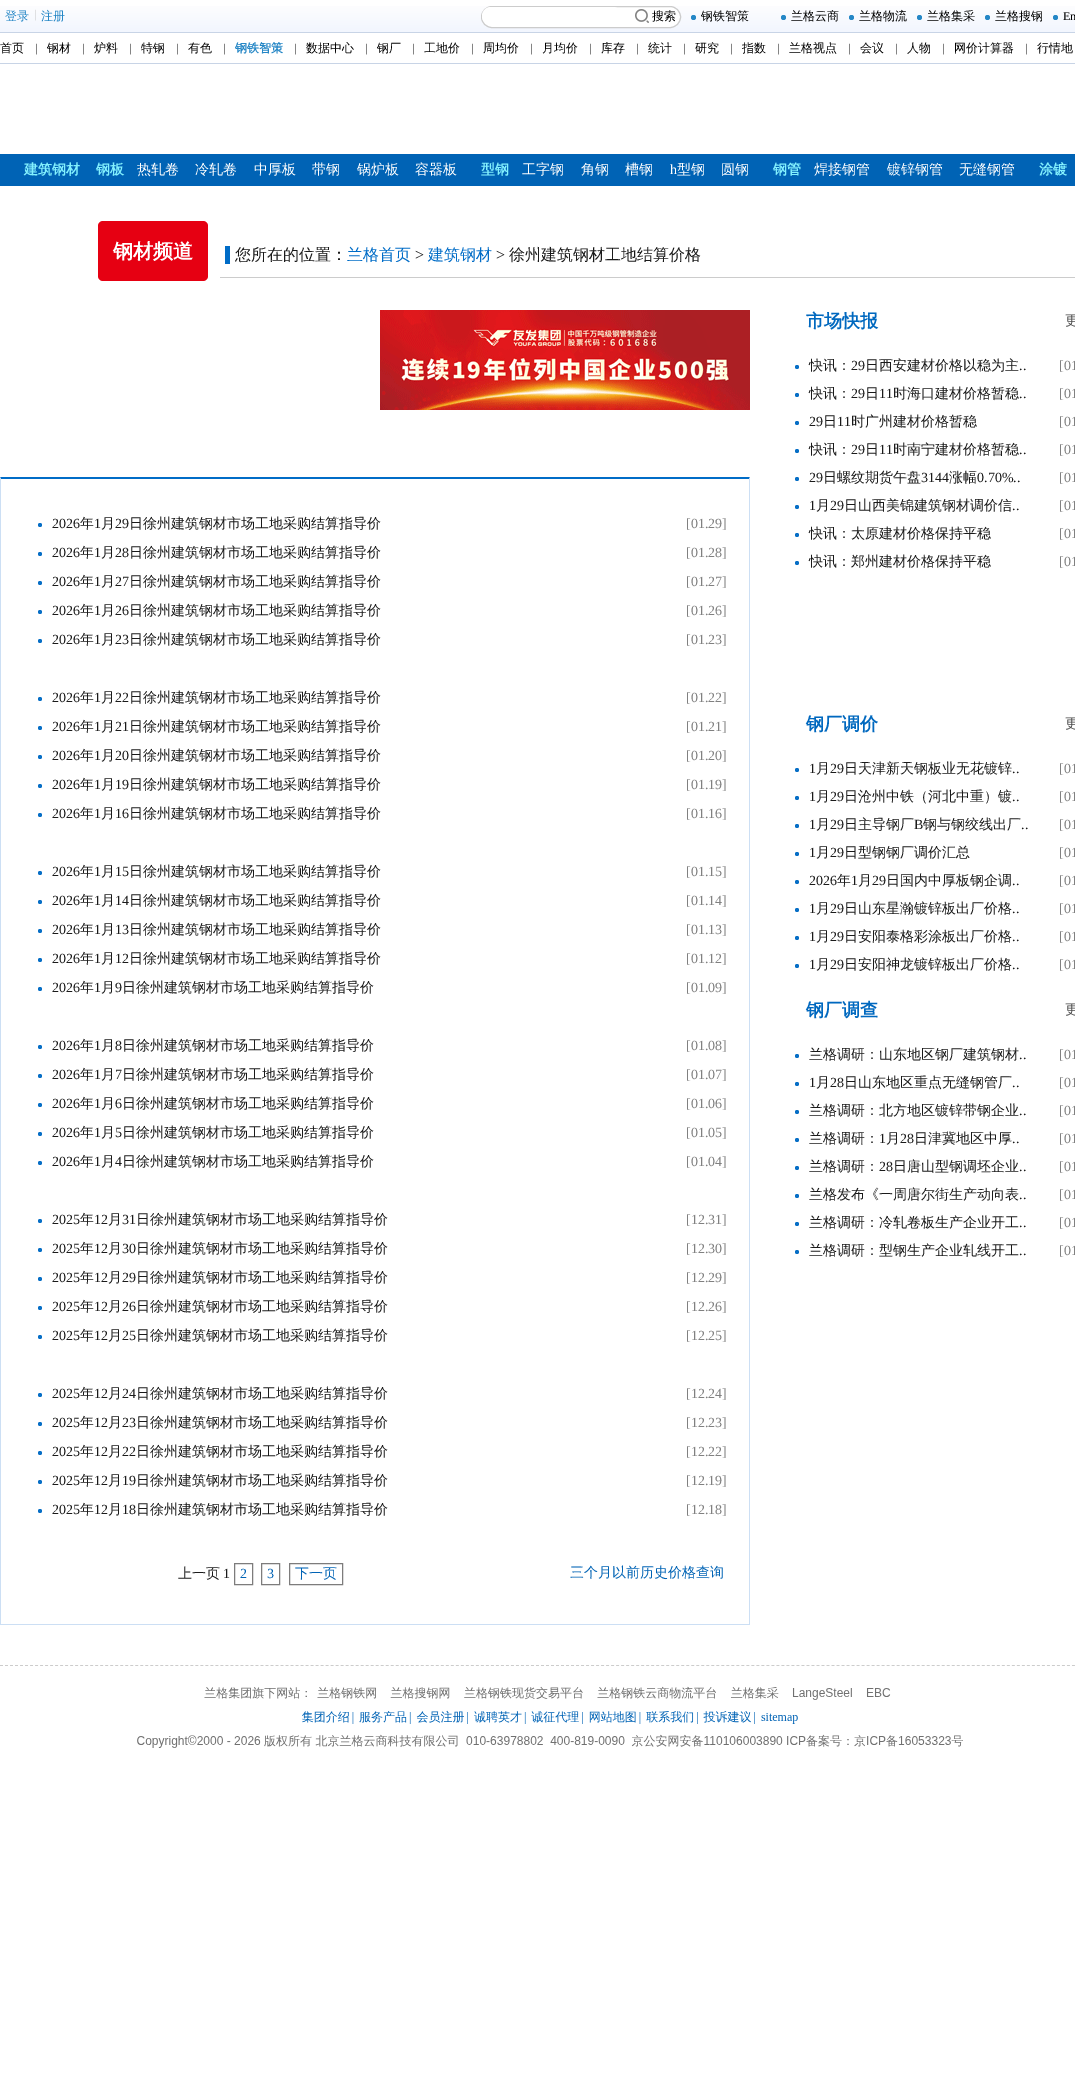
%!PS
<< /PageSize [1075 2093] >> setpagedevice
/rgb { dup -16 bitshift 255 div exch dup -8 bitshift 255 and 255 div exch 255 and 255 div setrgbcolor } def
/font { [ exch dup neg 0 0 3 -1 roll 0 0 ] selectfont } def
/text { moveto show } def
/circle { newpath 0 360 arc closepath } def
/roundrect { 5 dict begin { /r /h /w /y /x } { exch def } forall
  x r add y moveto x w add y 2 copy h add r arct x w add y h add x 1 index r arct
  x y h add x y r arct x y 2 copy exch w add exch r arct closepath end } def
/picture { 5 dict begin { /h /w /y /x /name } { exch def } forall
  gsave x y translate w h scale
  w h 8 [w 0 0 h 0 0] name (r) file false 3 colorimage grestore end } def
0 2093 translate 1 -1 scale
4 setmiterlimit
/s1 { /WenQuanYiZenHei-Medium 12 font 16#2587C6 rgb } def
/s2 { /LiberationSerif-Regular 12 font 16#CACACA rgb } def
/s3 { /WenQuanYiZenHei-Medium 12 font 16#000000 rgb } def
/s4 { /LiberationSerif-Regular 12 font 16#000000 rgb } def
/s5 { /LiberationSerif-Regular 12 font 16#1A1A1A rgb } def
/s6 { /WenQuanYiZenHei-Bold 12 font 16#2587C6 rgb } def
/s7 { /WenQuanYiZenHei-Bold 14 font 16#83F1FE rgb } def
/s8 { /WenQuanYiZenHei-Medium 14 font 16#FFFFFF rgb } def
/s9 { /LiberationSerif-Regular 14 font 16#FFFFFF rgb } def
/s10 { /WenQuanYiZenHei-Bold 20 font 16#FFFFFF rgb } def
/s11 { /WenQuanYiZenHei-Medium 16 font 16#1A1A1A rgb } def
/s12 { /WenQuanYiZenHei-Medium 16 font 16#006CC7 rgb } def
/s13 { /LiberationSerif-Regular 16 font 16#1A1A1A rgb } def
/s14 { /LiberationSerif-Regular 14 font 16#1A1A1A rgb } def
/s15 { /WenQuanYiZenHei-Medium 14 font 16#1A1A1A rgb } def
/s16 { /LiberationSerif-Regular 14 font 16#808080 rgb } def
/s17 { /LiberationSerif-Regular 14 font 16#0063B5 rgb } def
/s18 { /WenQuanYiZenHei-Medium 14 font 16#0063B5 rgb } def
/s19 { /WenQuanYiZenHei-Bold 18 font 16#0068BF rgb } def
/s20 { /WenQuanYiZenHei-Medium 14 font 16#4C4C4C rgb } def
16#FFFFFF rgb
0 0 1075 2093 rectfill
gsave 0 6 moveto 1075 6 lineto 1075 32 lineto 0 32 lineto closepath clip newpath
<< /ShadingType 2 /ColorSpace /DeviceRGB /Coords [550 0 550 32] /Extend [true true] /Function << /FunctionType 2 /Domain [0 1] /C0 [1 1 1] /C1 [0.949 0.965 0.996] /N 1 >> >> shfill grestore
16#C8D4E6 rgb
0 32 1075 1 rectfill
s1
(登录) 5 20 text
s2
(|) 34 18 text
s1
(注册) 41 20 text
16#FFFFFF rgb
481.5 6.5 199 21 10.5 roundrect gsave fill grestore
16#CCCCCC rgb
stroke
16#FFFFFF rgb
482 7 140 18 9 roundrect fill
(pic1.raw) 635 9 14 14 picture
s3
(搜索) 652 20 text
16#2587C6 rgb
693.5 17.5 2.5 circle fill
s3
(钢铁智策) 701 20 text
16#2587C6 rgb
783.5 17.5 2.5 circle fill
s3
(兰格云商) 791 20 text
16#2587C6 rgb
851.5 17.5 2.5 circle fill
s3
(兰格物流) 859 20 text
16#2587C6 rgb
919.5 17.5 2.5 circle fill
s3
(兰格集采) 927 20 text
16#2587C6 rgb
987.5 17.5 2.5 circle fill
s3
(兰格搜钢) 995 20 text
16#2587C6 rgb
1055.5 17.5 2.5 circle fill
s4
(En) 1063 20 text
16#C8D4E6 rgb
0 63 1075 1 rectfill
s3
(首页) 0 52 text
s5
(|) 35 52 text
s3
(钢材) 47 52 text
s5
(|) 82 52 text
s3
(炉料) 94 52 text
s5
(|) 129 52 text
s3
(特钢) 141 52 text
s5
(|) 176 52 text
s3
(有色) 188 52 text
s5
(|) 223 52 text
s6
(钢铁智策) 235 52 text
s5
(|) 294 52 text
s3
(数据中心) 306 52 text
s5
(|) 365 52 text
s3
(钢厂) 377 52 text
s5
(|) 412 52 text
s3
(工地价) 424 52 text
s5
(|) 471 52 text
s3
(周均价) 483 52 text
s5
(|) 530 52 text
s3
(月均价) 542 52 text
s5
(|) 589 52 text
s3
(库存) 601 52 text
s5
(|) 636 52 text
s3
(统计) 648 52 text
s5
(|) 683 52 text
s3
(研究) 695 52 text
s5
(|) 730 52 text
s3
(指数) 742 52 text
s5
(|) 777 52 text
s3
(兰格视点) 789 52 text
s5
(|) 848 52 text
s3
(会议) 860 52 text
s5
(|) 895 52 text
s3
(人物) 907 52 text
s5
(|) 942 52 text
s3
(网价计算器) 954 52 text
s5
(|) 1025 52 text
s3
(行情地) 1037 52 text
16#0063B5 rgb
0 154 1075 32 rectfill
s7
(建筑钢材) 24 174 text
(钢板) 96 174 text
s8
(热轧卷) 137 174 text
(冷轧卷) 195 174 text
(中厚板) 254 174 text
(带钢) 312 174 text
(锅炉板) 357 174 text
(容器板) 415 174 text
s7
(型钢) 481 174 text
s8
(工字钢) 522 174 text
(角钢) 581 174 text
(槽钢) 625 174 text
s9
(h) 670 174 text
s8
(型钢) 677 174 text
(圆钢) 721 174 text
s7
(钢管) 773 174 text
s8
(焊接钢管) 814 174 text
(镀锌钢管) 887 174 text
(无缝钢管) 959 174 text
s7
(涂镀) 1039 174 text
16#E60012 rgb
98 221 110 60 5 roundrect fill
s10
(钢材频道) 113 258 text
16#CCCCCC rgb
220 277 855 1 rectfill
16#006CC7 rgb
225 246 5 18 rectfill
s11
(您所在的位置：) 235 260 text
s12
(兰格首页) 347 260 text
s13
(>) 415 260 text
s12
(建筑钢材) 428 260 text
s13
(>) 496 260 text
s11
(徐州建筑钢材工地结算价格) 509 260 text
(pic2.raw) 380 310 370 100 picture
16#006CC7 rgb
0 477 moveto 750 477 lineto 749 479 lineto 1 479 lineto closepath fill
16#CCDFF4 rgb
750 477 moveto 750 1625 lineto 749 1624 lineto 749 479 lineto closepath fill
0 1624 750 1 rectfill
0 1625 moveto 0 477 lineto 1 479 lineto 1 1624 lineto closepath fill
16#076FC6 rgb
40 525 2 circle fill
s14
(2026) 52 528 text
s15
(年) 80 528 text
s14
(1) 94 528 text
s15
(月) 101 528 text
s14
(29) 115 528 text
s15
(日徐州建筑钢材市场工地采购结算指导价) 129 528 text
s16
([01.29]) 686 528 text
16#076FC6 rgb
40 554 2 circle fill
s14
(2026) 52 557 text
s15
(年) 80 557 text
s14
(1) 94 557 text
s15
(月) 101 557 text
s14
(28) 115 557 text
s15
(日徐州建筑钢材市场工地采购结算指导价) 129 557 text
s16
([01.28]) 686 557 text
16#076FC6 rgb
40 583 2 circle fill
s14
(2026) 52 586 text
s15
(年) 80 586 text
s14
(1) 94 586 text
s15
(月) 101 586 text
s14
(27) 115 586 text
s15
(日徐州建筑钢材市场工地采购结算指导价) 129 586 text
s16
([01.27]) 686 586 text
16#076FC6 rgb
40 612 2 circle fill
s14
(2026) 52 615 text
s15
(年) 80 615 text
s14
(1) 94 615 text
s15
(月) 101 615 text
s14
(26) 115 615 text
s15
(日徐州建筑钢材市场工地采购结算指导价) 129 615 text
s16
([01.26]) 686 615 text
16#076FC6 rgb
40 641 2 circle fill
s14
(2026) 52 644 text
s15
(年) 80 644 text
s14
(1) 94 644 text
s15
(月) 101 644 text
s14
(23) 115 644 text
s15
(日徐州建筑钢材市场工地采购结算指导价) 129 644 text
s16
([01.23]) 686 644 text
16#076FC6 rgb
40 699 2 circle fill
s14
(2026) 52 702 text
s15
(年) 80 702 text
s14
(1) 94 702 text
s15
(月) 101 702 text
s14
(22) 115 702 text
s15
(日徐州建筑钢材市场工地采购结算指导价) 129 702 text
s16
([01.22]) 686 702 text
16#076FC6 rgb
40 728 2 circle fill
s14
(2026) 52 731 text
s15
(年) 80 731 text
s14
(1) 94 731 text
s15
(月) 101 731 text
s14
(21) 115 731 text
s15
(日徐州建筑钢材市场工地采购结算指导价) 129 731 text
s16
([01.21]) 686 731 text
16#076FC6 rgb
40 757 2 circle fill
s14
(2026) 52 760 text
s15
(年) 80 760 text
s14
(1) 94 760 text
s15
(月) 101 760 text
s14
(20) 115 760 text
s15
(日徐州建筑钢材市场工地采购结算指导价) 129 760 text
s16
([01.20]) 686 760 text
16#076FC6 rgb
40 786 2 circle fill
s14
(2026) 52 789 text
s15
(年) 80 789 text
s14
(1) 94 789 text
s15
(月) 101 789 text
s14
(19) 115 789 text
s15
(日徐州建筑钢材市场工地采购结算指导价) 129 789 text
s16
([01.19]) 686 789 text
16#076FC6 rgb
40 815 2 circle fill
s14
(2026) 52 818 text
s15
(年) 80 818 text
s14
(1) 94 818 text
s15
(月) 101 818 text
s14
(16) 115 818 text
s15
(日徐州建筑钢材市场工地采购结算指导价) 129 818 text
s16
([01.16]) 686 818 text
16#076FC6 rgb
40 873 2 circle fill
s14
(2026) 52 876 text
s15
(年) 80 876 text
s14
(1) 94 876 text
s15
(月) 101 876 text
s14
(15) 115 876 text
s15
(日徐州建筑钢材市场工地采购结算指导价) 129 876 text
s16
([01.15]) 686 876 text
16#076FC6 rgb
40 902 2 circle fill
s14
(2026) 52 905 text
s15
(年) 80 905 text
s14
(1) 94 905 text
s15
(月) 101 905 text
s14
(14) 115 905 text
s15
(日徐州建筑钢材市场工地采购结算指导价) 129 905 text
s16
([01.14]) 686 905 text
16#076FC6 rgb
40 931 2 circle fill
s14
(2026) 52 934 text
s15
(年) 80 934 text
s14
(1) 94 934 text
s15
(月) 101 934 text
s14
(13) 115 934 text
s15
(日徐州建筑钢材市场工地采购结算指导价) 129 934 text
s16
([01.13]) 686 934 text
16#076FC6 rgb
40 960 2 circle fill
s14
(2026) 52 963 text
s15
(年) 80 963 text
s14
(1) 94 963 text
s15
(月) 101 963 text
s14
(12) 115 963 text
s15
(日徐州建筑钢材市场工地采购结算指导价) 129 963 text
s16
([01.12]) 686 963 text
16#076FC6 rgb
40 989 2 circle fill
s14
(2026) 52 992 text
s15
(年) 80 992 text
s14
(1) 94 992 text
s15
(月) 101 992 text
s14
(9) 115 992 text
s15
(日徐州建筑钢材市场工地采购结算指导价) 122 992 text
s16
([01.09]) 686 992 text
16#076FC6 rgb
40 1047 2 circle fill
s14
(2026) 52 1050 text
s15
(年) 80 1050 text
s14
(1) 94 1050 text
s15
(月) 101 1050 text
s14
(8) 115 1050 text
s15
(日徐州建筑钢材市场工地采购结算指导价) 122 1050 text
s16
([01.08]) 686 1050 text
16#076FC6 rgb
40 1076 2 circle fill
s14
(2026) 52 1079 text
s15
(年) 80 1079 text
s14
(1) 94 1079 text
s15
(月) 101 1079 text
s14
(7) 115 1079 text
s15
(日徐州建筑钢材市场工地采购结算指导价) 122 1079 text
s16
([01.07]) 686 1079 text
16#076FC6 rgb
40 1105 2 circle fill
s14
(2026) 52 1108 text
s15
(年) 80 1108 text
s14
(1) 94 1108 text
s15
(月) 101 1108 text
s14
(6) 115 1108 text
s15
(日徐州建筑钢材市场工地采购结算指导价) 122 1108 text
s16
([01.06]) 686 1108 text
16#076FC6 rgb
40 1134 2 circle fill
s14
(2026) 52 1137 text
s15
(年) 80 1137 text
s14
(1) 94 1137 text
s15
(月) 101 1137 text
s14
(5) 115 1137 text
s15
(日徐州建筑钢材市场工地采购结算指导价) 122 1137 text
s16
([01.05]) 686 1137 text
16#076FC6 rgb
40 1163 2 circle fill
s14
(2026) 52 1166 text
s15
(年) 80 1166 text
s14
(1) 94 1166 text
s15
(月) 101 1166 text
s14
(4) 115 1166 text
s15
(日徐州建筑钢材市场工地采购结算指导价) 122 1166 text
s16
([01.04]) 686 1166 text
16#076FC6 rgb
40 1221 2 circle fill
s14
(2025) 52 1224 text
s15
(年) 80 1224 text
s14
(12) 94 1224 text
s15
(月) 108 1224 text
s14
(31) 122 1224 text
s15
(日徐州建筑钢材市场工地采购结算指导价) 136 1224 text
s16
([12.31]) 686 1224 text
16#076FC6 rgb
40 1250 2 circle fill
s14
(2025) 52 1253 text
s15
(年) 80 1253 text
s14
(12) 94 1253 text
s15
(月) 108 1253 text
s14
(30) 122 1253 text
s15
(日徐州建筑钢材市场工地采购结算指导价) 136 1253 text
s16
([12.30]) 686 1253 text
16#076FC6 rgb
40 1279 2 circle fill
s14
(2025) 52 1282 text
s15
(年) 80 1282 text
s14
(12) 94 1282 text
s15
(月) 108 1282 text
s14
(29) 122 1282 text
s15
(日徐州建筑钢材市场工地采购结算指导价) 136 1282 text
s16
([12.29]) 686 1282 text
16#076FC6 rgb
40 1308 2 circle fill
s14
(2025) 52 1311 text
s15
(年) 80 1311 text
s14
(12) 94 1311 text
s15
(月) 108 1311 text
s14
(26) 122 1311 text
s15
(日徐州建筑钢材市场工地采购结算指导价) 136 1311 text
s16
([12.26]) 686 1311 text
16#076FC6 rgb
40 1337 2 circle fill
s14
(2025) 52 1340 text
s15
(年) 80 1340 text
s14
(12) 94 1340 text
s15
(月) 108 1340 text
s14
(25) 122 1340 text
s15
(日徐州建筑钢材市场工地采购结算指导价) 136 1340 text
s16
([12.25]) 686 1340 text
16#076FC6 rgb
40 1395 2 circle fill
s14
(2025) 52 1398 text
s15
(年) 80 1398 text
s14
(12) 94 1398 text
s15
(月) 108 1398 text
s14
(24) 122 1398 text
s15
(日徐州建筑钢材市场工地采购结算指导价) 136 1398 text
s16
([12.24]) 686 1398 text
16#076FC6 rgb
40 1424 2 circle fill
s14
(2025) 52 1427 text
s15
(年) 80 1427 text
s14
(12) 94 1427 text
s15
(月) 108 1427 text
s14
(23) 122 1427 text
s15
(日徐州建筑钢材市场工地采购结算指导价) 136 1427 text
s16
([12.23]) 686 1427 text
16#076FC6 rgb
40 1453 2 circle fill
s14
(2025) 52 1456 text
s15
(年) 80 1456 text
s14
(12) 94 1456 text
s15
(月) 108 1456 text
s14
(22) 122 1456 text
s15
(日徐州建筑钢材市场工地采购结算指导价) 136 1456 text
s16
([12.22]) 686 1456 text
16#076FC6 rgb
40 1482 2 circle fill
s14
(2025) 52 1485 text
s15
(年) 80 1485 text
s14
(12) 94 1485 text
s15
(月) 108 1485 text
s14
(19) 122 1485 text
s15
(日徐州建筑钢材市场工地采购结算指导价) 136 1485 text
s16
([12.19]) 686 1485 text
16#076FC6 rgb
40 1511 2 circle fill
s14
(2025) 52 1514 text
s15
(年) 80 1514 text
s14
(12) 94 1514 text
s15
(月) 108 1514 text
s14
(18) 122 1514 text
s15
(日徐州建筑钢材市场工地采购结算指导价) 136 1514 text
s16
([12.18]) 686 1514 text
s15
(上一页) 178 1578 text
s14
(1) 223 1578 text
16#7D7C7C rgb
234.5 1563.5 18 21 rectstroke
s17
(2) 240 1578 text
16#7D7C7C rgb
261.5 1563.5 18 21 rectstroke
s17
(3) 267 1578 text
16#7D7C7C rgb
289.5 1563.5 53 21 rectstroke
s18
(下一页) 295 1578 text
(三个月以前历史价格查询) 570 1577 text
s19
(市场快报) 806 327 text
s20
(更) 1065 325 text
16#076FC6 rgb
797 367 2 circle fill
s15
(快讯：) 809 370 text
s14
(29) 851 370 text
s15
(日西安建材价格以稳为主) 865 370 text
s16
([01) 1059 370 text
s14
(..) 1019 370 text
16#076FC6 rgb
797 395 2 circle fill
s15
(快讯：) 809 398 text
s14
(29) 851 398 text
s15
(日) 865 398 text
s14
(11) 879 398 text
s15
(时海口建材价格暂稳) 893 398 text
s16
([01) 1059 398 text
s14
(..) 1019 398 text
16#076FC6 rgb
797 423 2 circle fill
s14
(29) 809 426 text
s15
(日) 823 426 text
s14
(11) 837 426 text
s15
(时广州建材价格暂稳) 851 426 text
s16
([01) 1059 426 text
16#076FC6 rgb
797 451 2 circle fill
s15
(快讯：) 809 454 text
s14
(29) 851 454 text
s15
(日) 865 454 text
s14
(11) 879 454 text
s15
(时南宁建材价格暂稳) 893 454 text
s16
([01) 1059 454 text
s14
(..) 1019 454 text
16#076FC6 rgb
797 479 2 circle fill
s14
(29) 809 482 text
s15
(日螺纹期货午盘) 823 482 text
s14
(3144) 921 482 text
s15
(涨幅) 949 482 text
s14
(0.70%..) 977 482 text
s16
([01) 1059 482 text
16#076FC6 rgb
797 507 2 circle fill
s14
(1) 809 510 text
s15
(月) 816 510 text
s14
(29) 830 510 text
s15
(日山西美锦建筑钢材调价信) 844 510 text
s16
([01) 1059 510 text
s14
(..) 1012 510 text
16#076FC6 rgb
797 535 2 circle fill
s15
(快讯：太原建材价格保持平稳) 809 538 text
s16
([01) 1059 538 text
16#076FC6 rgb
797 563 2 circle fill
s15
(快讯：郑州建材价格保持平稳) 809 566 text
s16
([01) 1059 566 text
s19
(钢厂调价) 806 730 text
s20
(更) 1065 728 text
16#076FC6 rgb
797 770 2 circle fill
s14
(1) 809 773 text
s15
(月) 816 773 text
s14
(29) 830 773 text
s15
(日天津新天钢板业无花镀锌) 844 773 text
s16
([01) 1059 773 text
s14
(..) 1012 773 text
16#076FC6 rgb
797 798 2 circle fill
s14
(1) 809 801 text
s15
(月) 816 801 text
s14
(29) 830 801 text
s15
(日沧州中铁（河北中重）镀) 844 801 text
s16
([01) 1059 801 text
s14
(..) 1012 801 text
16#076FC6 rgb
797 826 2 circle fill
s14
(1) 809 829 text
s15
(月) 816 829 text
s14
(29) 830 829 text
s15
(日主导钢厂) 844 829 text
s14
(B) 914 829 text
s15
(钢与钢绞线出厂) 923 829 text
s16
([01) 1059 829 text
s14
(..) 1021 829 text
16#076FC6 rgb
797 854 2 circle fill
s14
(1) 809 857 text
s15
(月) 816 857 text
s14
(29) 830 857 text
s15
(日型钢钢厂调价汇总) 844 857 text
s16
([01) 1059 857 text
16#076FC6 rgb
797 882 2 circle fill
s14
(2026) 809 885 text
s15
(年) 837 885 text
s14
(1) 851 885 text
s15
(月) 858 885 text
s14
(29) 872 885 text
s15
(日国内中厚板钢企调) 886 885 text
s16
([01) 1059 885 text
s14
(..) 1012 885 text
16#076FC6 rgb
797 910 2 circle fill
s14
(1) 809 913 text
s15
(月) 816 913 text
s14
(29) 830 913 text
s15
(日山东星瀚镀锌板出厂价格) 844 913 text
s16
([01) 1059 913 text
s14
(..) 1012 913 text
16#076FC6 rgb
797 938 2 circle fill
s14
(1) 809 941 text
s15
(月) 816 941 text
s14
(29) 830 941 text
s15
(日安阳泰格彩涂板出厂价格) 844 941 text
s16
([01) 1059 941 text
s14
(..) 1012 941 text
16#076FC6 rgb
797 966 2 circle fill
s14
(1) 809 969 text
s15
(月) 816 969 text
s14
(29) 830 969 text
s15
(日安阳神龙镀锌板出厂价格) 844 969 text
s16
([01) 1059 969 text
s14
(..) 1012 969 text
s19
(钢厂调查) 806 1016 text
s20
(更) 1065 1014 text
16#076FC6 rgb
797 1056 2 circle fill
s15
(兰格调研：山东地区钢厂建筑钢材) 809 1059 text
s16
([01) 1059 1059 text
s14
(..) 1019 1059 text
16#076FC6 rgb
797 1084 2 circle fill
s14
(1) 809 1087 text
s15
(月) 816 1087 text
s14
(28) 830 1087 text
s15
(日山东地区重点无缝钢管厂) 844 1087 text
s16
([01) 1059 1087 text
s14
(..) 1012 1087 text
16#076FC6 rgb
797 1112 2 circle fill
s15
(兰格调研：北方地区镀锌带钢企业) 809 1115 text
s16
([01) 1059 1115 text
s14
(..) 1019 1115 text
16#076FC6 rgb
797 1140 2 circle fill
s15
(兰格调研：) 809 1143 text
s14
(1) 879 1143 text
s15
(月) 886 1143 text
s14
(28) 900 1143 text
s15
(日津冀地区中厚) 914 1143 text
s16
([01) 1059 1143 text
s14
(..) 1012 1143 text
16#076FC6 rgb
797 1168 2 circle fill
s15
(兰格调研：) 809 1171 text
s14
(28) 879 1171 text
s15
(日唐山型钢调坯企业) 893 1171 text
s16
([01) 1059 1171 text
s14
(..) 1019 1171 text
16#076FC6 rgb
797 1196 2 circle fill
s15
(兰格发布《一周唐尔街生产动向表) 809 1199 text
s16
([01) 1059 1199 text
s14
(..) 1019 1199 text
16#076FC6 rgb
797 1224 2 circle fill
s15
(兰格调研：冷轧卷板生产企业开工) 809 1227 text
s16
([01) 1059 1227 text
s14
(..) 1019 1227 text
16#076FC6 rgb
797 1252 2 circle fill
s15
(兰格调研：型钢生产企业轧线开工) 809 1255 text
s16
([01) 1059 1255 text
s14
(..) 1019 1255 text
(pic3.raw) 0 1665 1075 83 picture
showpage
